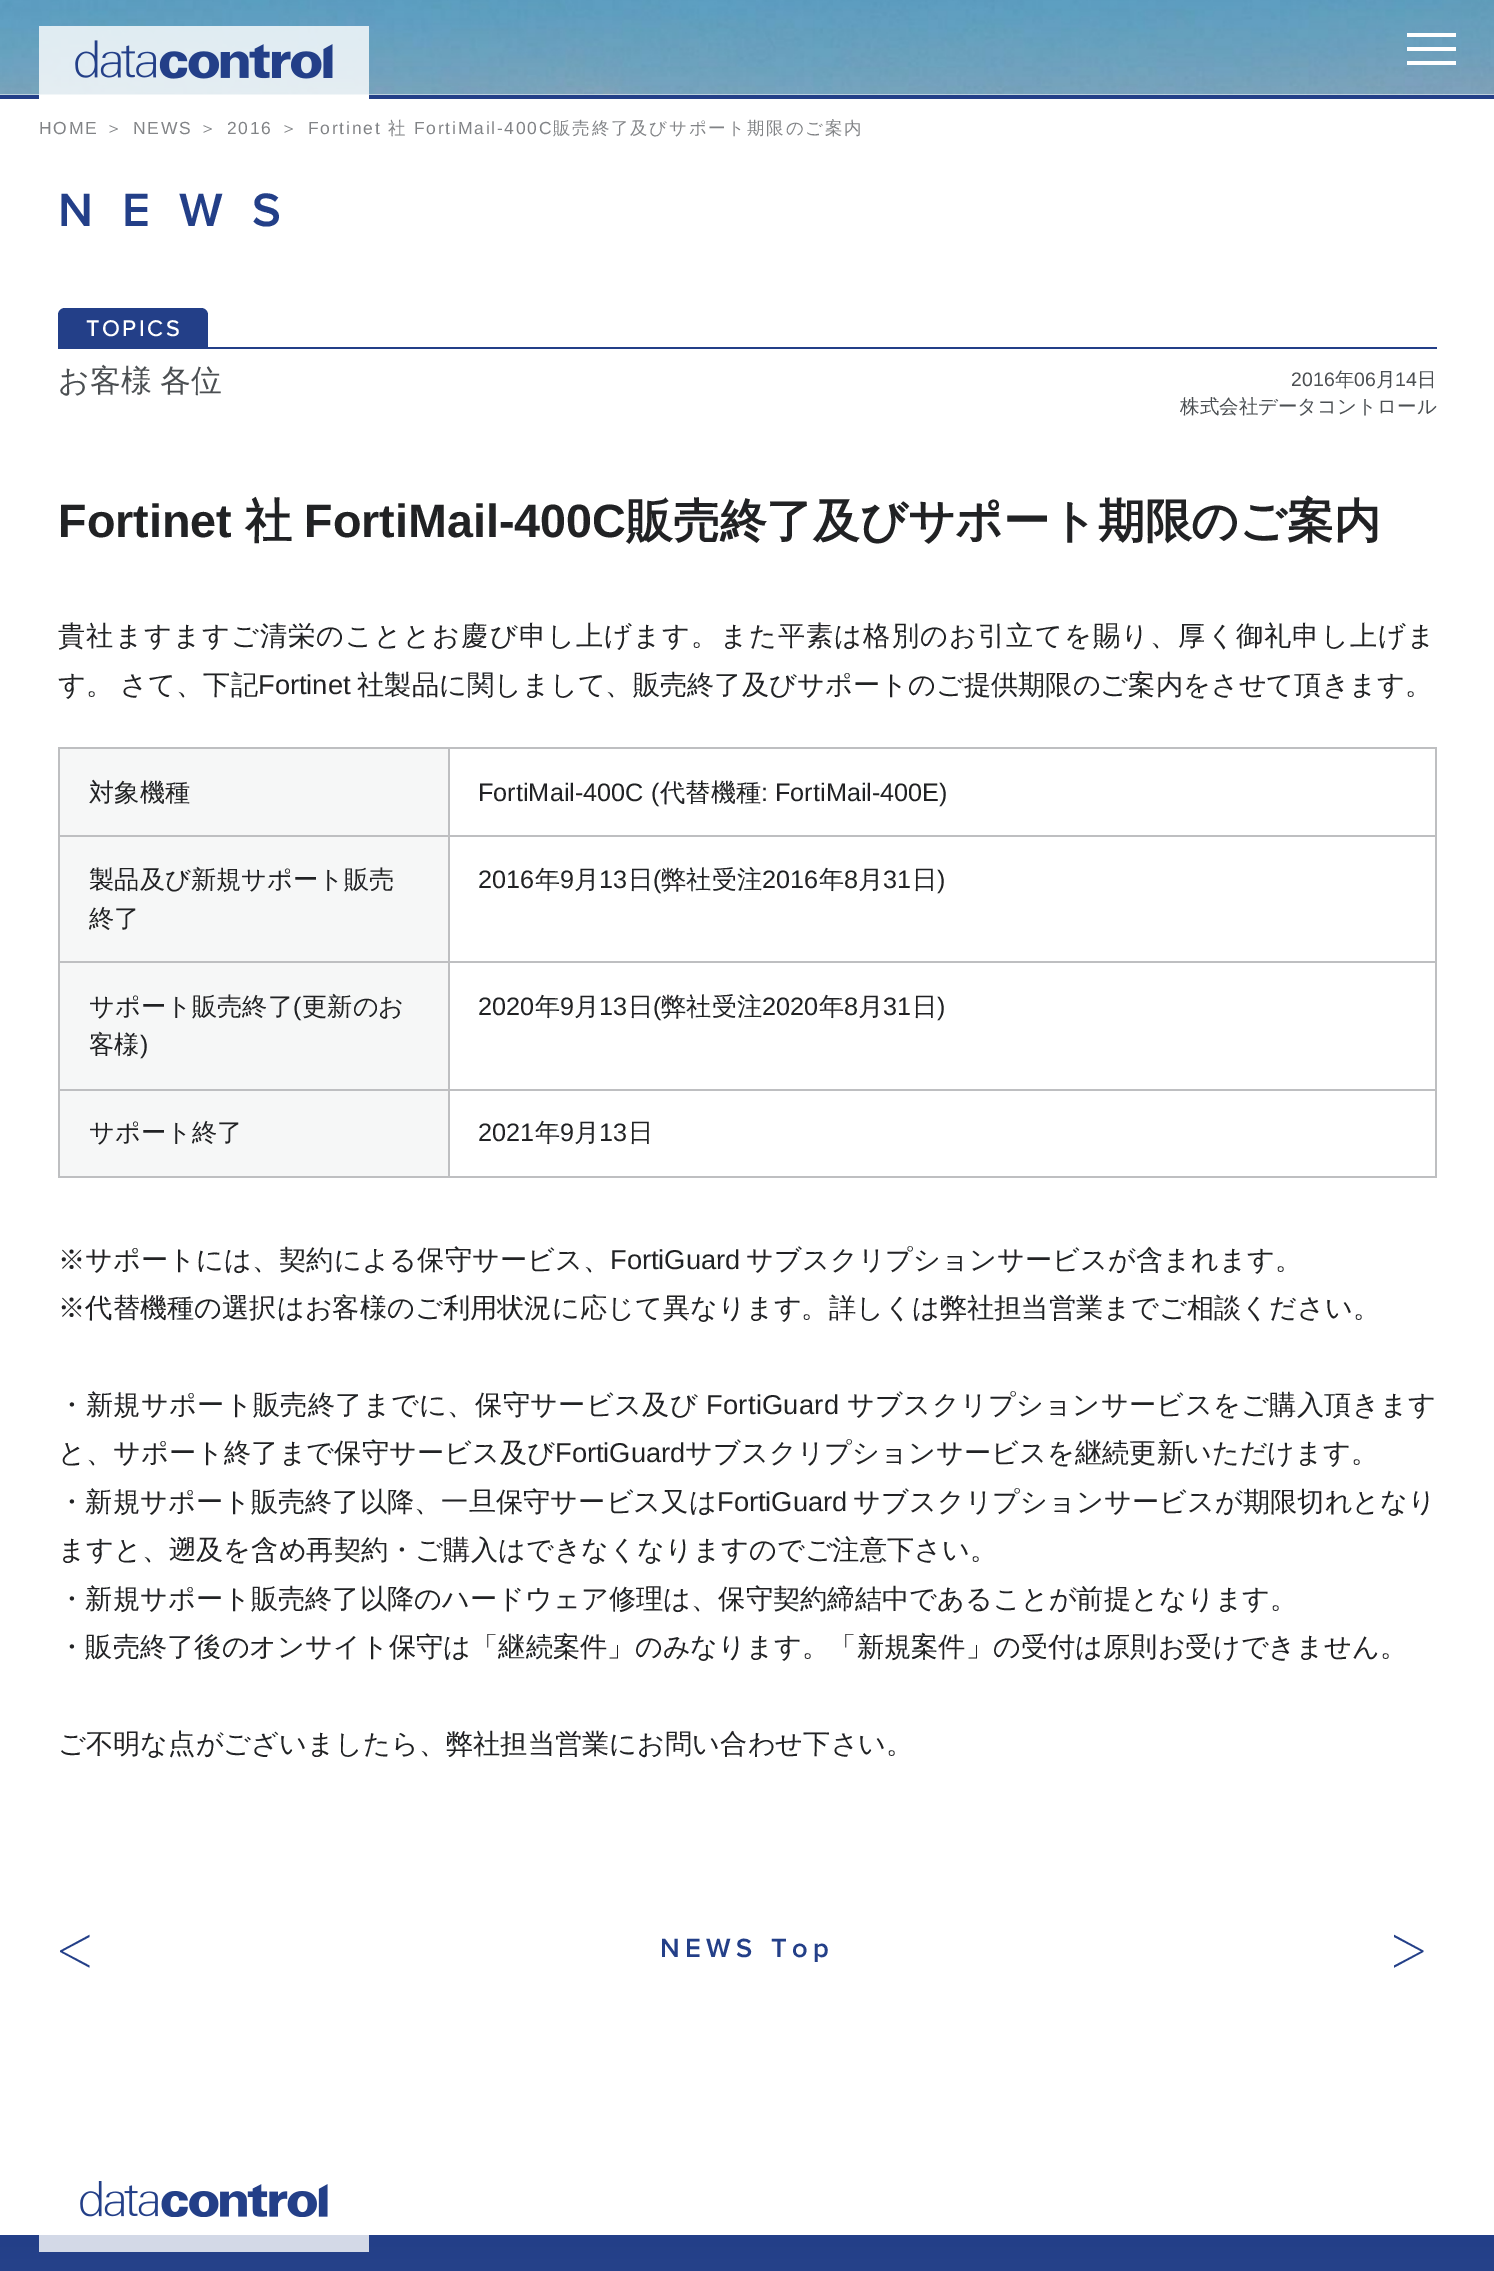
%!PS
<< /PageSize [1494 2271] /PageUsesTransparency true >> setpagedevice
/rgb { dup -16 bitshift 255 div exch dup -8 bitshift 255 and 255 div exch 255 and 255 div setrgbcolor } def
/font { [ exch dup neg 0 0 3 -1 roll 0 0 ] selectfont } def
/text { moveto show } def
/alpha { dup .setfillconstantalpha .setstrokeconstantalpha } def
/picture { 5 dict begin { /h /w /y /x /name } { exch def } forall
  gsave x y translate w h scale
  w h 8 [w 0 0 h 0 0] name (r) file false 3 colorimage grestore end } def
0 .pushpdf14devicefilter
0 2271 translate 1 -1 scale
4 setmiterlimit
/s1 { /LiberationSans-Regular 19.5 font 16#4B4F52 rgb } def
/s2 { /WenQuanYiZenHei-Medium 19.5 font 16#4B4F52 rgb } def
/s3 { /LiberationSans-Bold 46.75 font 16#212224 rgb } def
/s4 { /WenQuanYiZenHei-Bold 46.75 font 16#212224 rgb } def
/s5 { /LiberationSans-Regular 27.25 font 16#212224 rgb } def
/s6 { /WenQuanYiZenHei-Medium 27.25 font 16#212224 rgb } def
/s7 { /WenQuanYiZenHei-Medium 25.25 font 16#212224 rgb } def
/s8 { /LiberationSans-Regular 25.25 font 16#212224 rgb } def
16#FFFFFF rgb
0 0 1494 2271 rectfill
(pic1.raw) 0 0 1494 95 picture
16#233F88 rgb
0 95 1494 4 rectfill
0.8 alpha
16#FFFFFF rgb
39 26 330 69 rectfill
1 alpha
(pic2.raw) 75 40 258 39 picture
39 95 330 4 rectfill
1407 47 49 4 rectfill
1407 33 49 4 rectfill
1407 61 49 4 rectfill
/LiberationSans-Regular 17.5 font
16#818386 rgb
39 134 moveto 1.75 0 (HOME) ashow
/WenQuanYiZenHei-Medium 17.5 font
105 134 moveto 1.75 0 (＞) ashow
/LiberationSans-Regular 17.5 font
133 134 moveto 1.75 0 (NEWS) ashow
/WenQuanYiZenHei-Medium 17.5 font
199 134 moveto 1.75 0 (＞) ashow
/LiberationSans-Regular 17.5 font
227 134 moveto 1.75 0 (2016) ashow
/WenQuanYiZenHei-Medium 17.5 font
280 134 moveto 1.75 0 (＞) ashow
/LiberationSans-Regular 17.5 font
308 134 moveto 1.75 0 (Fortinet) ashow
/WenQuanYiZenHei-Medium 17.5 font
388 134 moveto 1.75 0 (社) ashow
/LiberationSans-Regular 17.5 font
414 134 moveto 1.75 0 (FortiMail-400C) ashow
/WenQuanYiZenHei-Medium 17.5 font
553 134 moveto 1.75 0 (販売終了及びサポート期限のご案内) ashow
/ProximaNova-SemiBold 48.5 font
16#233F88 rgb
58 226 moveto 29 0 (NEWS) ashow
65 308 moveto 201 308 lineto 205 308 208 311 208 315 curveto 208 348 lineto 58 348 lineto 58 315 lineto 58 311 61 308 65 308 curveto closepath fill
/ProximaNova-Medium 23.5 font
16#FFFFFF rgb
86 336 moveto 2.5 0 (TOPICS) ashow
16#233F88 rgb
58 347 1379 2 rectfill
/WenQuanYiZenHei-Medium 31 font
16#4B4F52 rgb
58 391 moveto -1 0 32 (お客様 各位) widthshow
s1
(2016) 1291 386 text
s2
(年) 1335 386 text
s1
(06) 1354 386 text
s2
(月) 1376 386 text
s1
(14) 1395 386 text
s2
(日) 1417 386 text
(株式会社データコントロール) 1180 413 text
s3
(Fortinet) 58 537 text
s4
(社) 245 537 text
s3
(FortiMail-400C) 304 537 text
s4
(販売終了及びサポート期限のご案内) 626 537 text
/WenQuanYiZenHei-Medium 27.25 font
58 645 moveto 1.1 0 (貴社ますますご清栄のこととお慶び申し上げます。また平素は格別のお引立てを賜り、厚く御礼申し上げま) ashow
58 694 moveto -1 0 32 (す。 さて、下記) widthshow
s5
(Fortinet) 258 694 text
s6
(社製品に関しまして、販売終了及びサポートのご提供期限のご案内をさせて頂きます。) 357 694 text
16#BEBFC1 rgb
58 747 1379 2 rectfill
1435 747 2 431 rectfill
58 1176 1379 2 rectfill
58 747 2 431 rectfill
16#F6F7F7 rgb
60 749 388 86 rectfill
16#BEBFC1 rgb
448 1089 2 89 rectfill
448 1089 989 2 rectfill
448 961 2 129 rectfill
448 961 989 2 rectfill
448 835 2 128 rectfill
448 835 989 2 rectfill
448 747 2 90 rectfill
58 835 392 2 rectfill
s7
(対象機種) 89 801 text
s8
(FortiMail-400C \() 478 801 text
s7
(代替機種) 660 801 text
s8
(: FortiMail-400E\)) 761 801 text
16#F6F7F7 rgb
60 837 388 124 rectfill
16#BEBFC1 rgb
58 961 392 2 rectfill
s7
(製品及び新規サポート販売) 89 888 text
(終了) 89 927 text
s8
(2016) 478 888 text
s7
(年) 535 888 text
s8
(9) 560 888 text
s7
(月) 574 888 text
s8
(13) 599 888 text
s7
(日) 628 888 text
s8
(\() 653 888 text
s7
(弊社受注) 661 888 text
s8
(2016) 762 888 text
s7
(年) 819 888 text
s8
(8) 844 888 text
s7
(月) 858 888 text
s8
(31) 883 888 text
s7
(日) 912 888 text
s8
(\)) 937 888 text
16#F6F7F7 rgb
60 963 388 126 rectfill
16#BEBFC1 rgb
58 1089 392 2 rectfill
s7
(サポート販売終了) 89 1015 text
s8
(\() 293 1015 text
s7
(更新のお) 302 1015 text
(客様) 89 1053 text
s8
(\)) 140 1053 text
(2020) 478 1015 text
s7
(年) 535 1015 text
s8
(9) 560 1015 text
s7
(月) 574 1015 text
s8
(13) 599 1015 text
s7
(日) 628 1015 text
s8
(\() 653 1015 text
s7
(弊社受注) 661 1015 text
s8
(2020) 762 1015 text
s7
(年) 819 1015 text
s8
(8) 844 1015 text
s7
(月) 858 1015 text
s8
(31) 883 1015 text
s7
(日) 912 1015 text
s8
(\)) 937 1015 text
16#F6F7F7 rgb
60 1091 388 85 rectfill
s7
(サポート終了) 89 1141 text
s8
(2021) 478 1141 text
s7
(年) 535 1141 text
s8
(9) 560 1141 text
s7
(月) 574 1141 text
s8
(13) 599 1141 text
s7
(日) 628 1141 text
s6
(※サポートには、契約による保守サービス、) 58 1269 text
s5
(FortiGuard) 610 1269 text
s6
(サブスクリプションサービスが含まれます。) 746 1269 text
(※代替機種の選択はお客様のご利用状況に応じて異なります。詳しくは弊社担当営業までご相談ください。) 58 1317 text
58 1414 moveto 0.3 0 (・新規サポート販売終了までに、保守サービス及び) ashow
/LiberationSans-Regular 27.25 font
706 1414 moveto 0.3 0 (FortiGuard) ashow
/WenQuanYiZenHei-Medium 27.25 font
847 1414 moveto 0.3 0 (サブスクリプションサービスをご購入頂きます) ashow
(と、サポート終了まで保守サービス及び) 58 1462 text
s5
(FortiGuard) 555 1462 text
s6
(サブスクリプションサービスを継続更新いただけます。) 685 1462 text
(・新規サポート販売終了以降、一旦保守サービス又は) 58 1511 text
s5
(FortiGuard) 717 1511 text
s6
(サブスクリプションサービスが期限切れとなり) 853 1511 text
(ますと、遡及を含め再契約・ご購入はできなくなりますのでご注意下さい。) 58 1559 text
(・新規サポート販売終了以降のハードウェア修理は、保守契約締結中であることが前提となります。) 58 1608 text
(・販売終了後のオンサイト保守は「継続案件」のみなります。「新規案件」の受付は原則お受けできません。) 58 1656 text
(ご不明な点がございましたら、弊社担当営業にお問い合わせ下さい。) 58 1753 text
/ProximaNova-Thin 68 font
16#233F88 rgb
58 1974 moveto 10 0 (<) ashow
/ProximaNova-SemiBold 27.25 font
660 1957 moveto 5.5 0 (NEWS Top) ashow
/ProximaNova-Thin 68 font
1392 1974 moveto 10 0 (>) ashow
gsave 0 2235 moveto 1494 2235 lineto 1494 2271 lineto 0 2271 lineto closepath clip newpath
<< /ShadingType 2 /ColorSpace /DeviceRGB /Coords [747 2235 747 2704] /Extend [true true] /Function << /FunctionType 3 /Domain [0 1] /Functions [<< /FunctionType 2 /Domain [0 1] /C0 [0.137 0.247 0.533] /C1 [0.173 0.278 0.553] /N 1 >> << /FunctionType 2 /Domain [0 1] /C0 [0.173 0.278 0.553] /C1 [0.592 0.678 0.937] /N 1 >>] /Bounds [0.2] /Encode [0 1 0 1] >> >> shfill grestore
gsave 39 2235 moveto 369 2235 lineto 369 2252 lineto 39 2252 lineto closepath clip newpath
<< /ShadingType 2 /ColorSpace /DeviceRGB /Coords [747 2235 747 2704] /Extend [true true] /Function << /FunctionType 3 /Domain [0 1] /Functions [<< /FunctionType 2 /Domain [0 1] /C0 [0.827 0.851 0.906] /C1 [0.835 0.855 0.91] /N 1 >> << /FunctionType 2 /Domain [0 1] /C0 [0.835 0.855 0.91] /C1 [0.918 0.937 0.988] /N 1 >>] /Bounds [0.2] /Encode [0 1 0 1] >> >> shfill grestore
(pic3.raw) 80 2181 248 36 picture
.poppdf14devicefilter showpage
